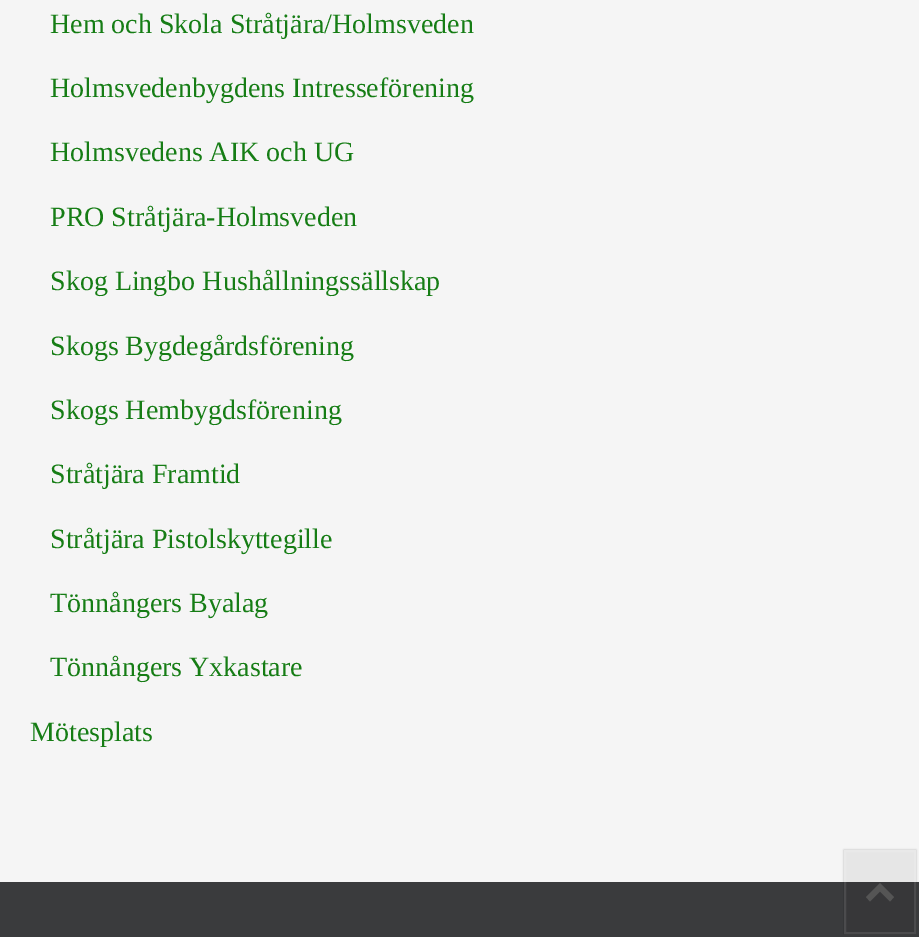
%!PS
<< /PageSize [919 937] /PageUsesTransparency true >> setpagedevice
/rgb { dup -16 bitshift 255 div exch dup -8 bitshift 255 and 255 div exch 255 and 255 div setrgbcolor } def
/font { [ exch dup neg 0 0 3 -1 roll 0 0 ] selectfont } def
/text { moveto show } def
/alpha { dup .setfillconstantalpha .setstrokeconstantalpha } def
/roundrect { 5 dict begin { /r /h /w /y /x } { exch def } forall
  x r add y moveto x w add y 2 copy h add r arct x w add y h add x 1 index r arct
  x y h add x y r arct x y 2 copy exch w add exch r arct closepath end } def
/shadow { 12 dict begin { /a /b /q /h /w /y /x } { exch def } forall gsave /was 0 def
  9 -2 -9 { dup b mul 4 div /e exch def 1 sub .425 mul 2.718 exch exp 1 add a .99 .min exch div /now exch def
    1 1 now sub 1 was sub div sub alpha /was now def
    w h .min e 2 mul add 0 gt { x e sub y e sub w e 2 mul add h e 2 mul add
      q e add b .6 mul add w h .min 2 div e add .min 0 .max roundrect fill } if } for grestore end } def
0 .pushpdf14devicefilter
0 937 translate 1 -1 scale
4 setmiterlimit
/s1 { /LiberationSerif-Regular 28 font 16#167D15 rgb } def
16#F5F5F5 rgb
0 0 919 937 rectfill
16#E6E6E6 rgb
844 850 72 32 rectfill
s1
(Hem och Skola Stråtjära/Holmsveden) 50 33 text
(Holmsvedenbygdens Intresseförening) 50 97 text
(Holmsvedens AIK och UG) 50 161 text
(PRO Stråtjära-Holmsveden) 50 226 text
(Skog Lingbo Hushållningssällskap) 50 290 text
(Skogs Bygdegårdsförening) 50 355 text
(Skogs Hembygdsförening) 50 419 text
(Stråtjära Framtid) 50 483 text
(Stråtjära Pistolskyttegille) 50 548 text
(Tönnångers Byalag) 50 612 text
(Tönnångers Yxkastare) 50 676 text
(Mötesplats) 30 741 text
16#3A3B3D rgb
0 882 919 55 rectfill
16#373739 rgb
844 882 72 52 rectfill
gsave
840 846 moveto 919 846 lineto 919 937 lineto 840 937 lineto closepath 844 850 moveto 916 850 lineto 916 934 lineto 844 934 lineto closepath eoclip newpath
16#000000 rgb
844 850 72 84 0 1 0.28 shadow
grestore
0.1 alpha
16#FFFFFF rgb
2 setlinewidth
845 851 70 82 rectstroke
1 alpha
16#555555 rgb
866 897 moveto 880 883 lineto 894 897 lineto 890 901.5 lineto 880 891.5 lineto 870 901.5 lineto closepath fill
.poppdf14devicefilter showpage
